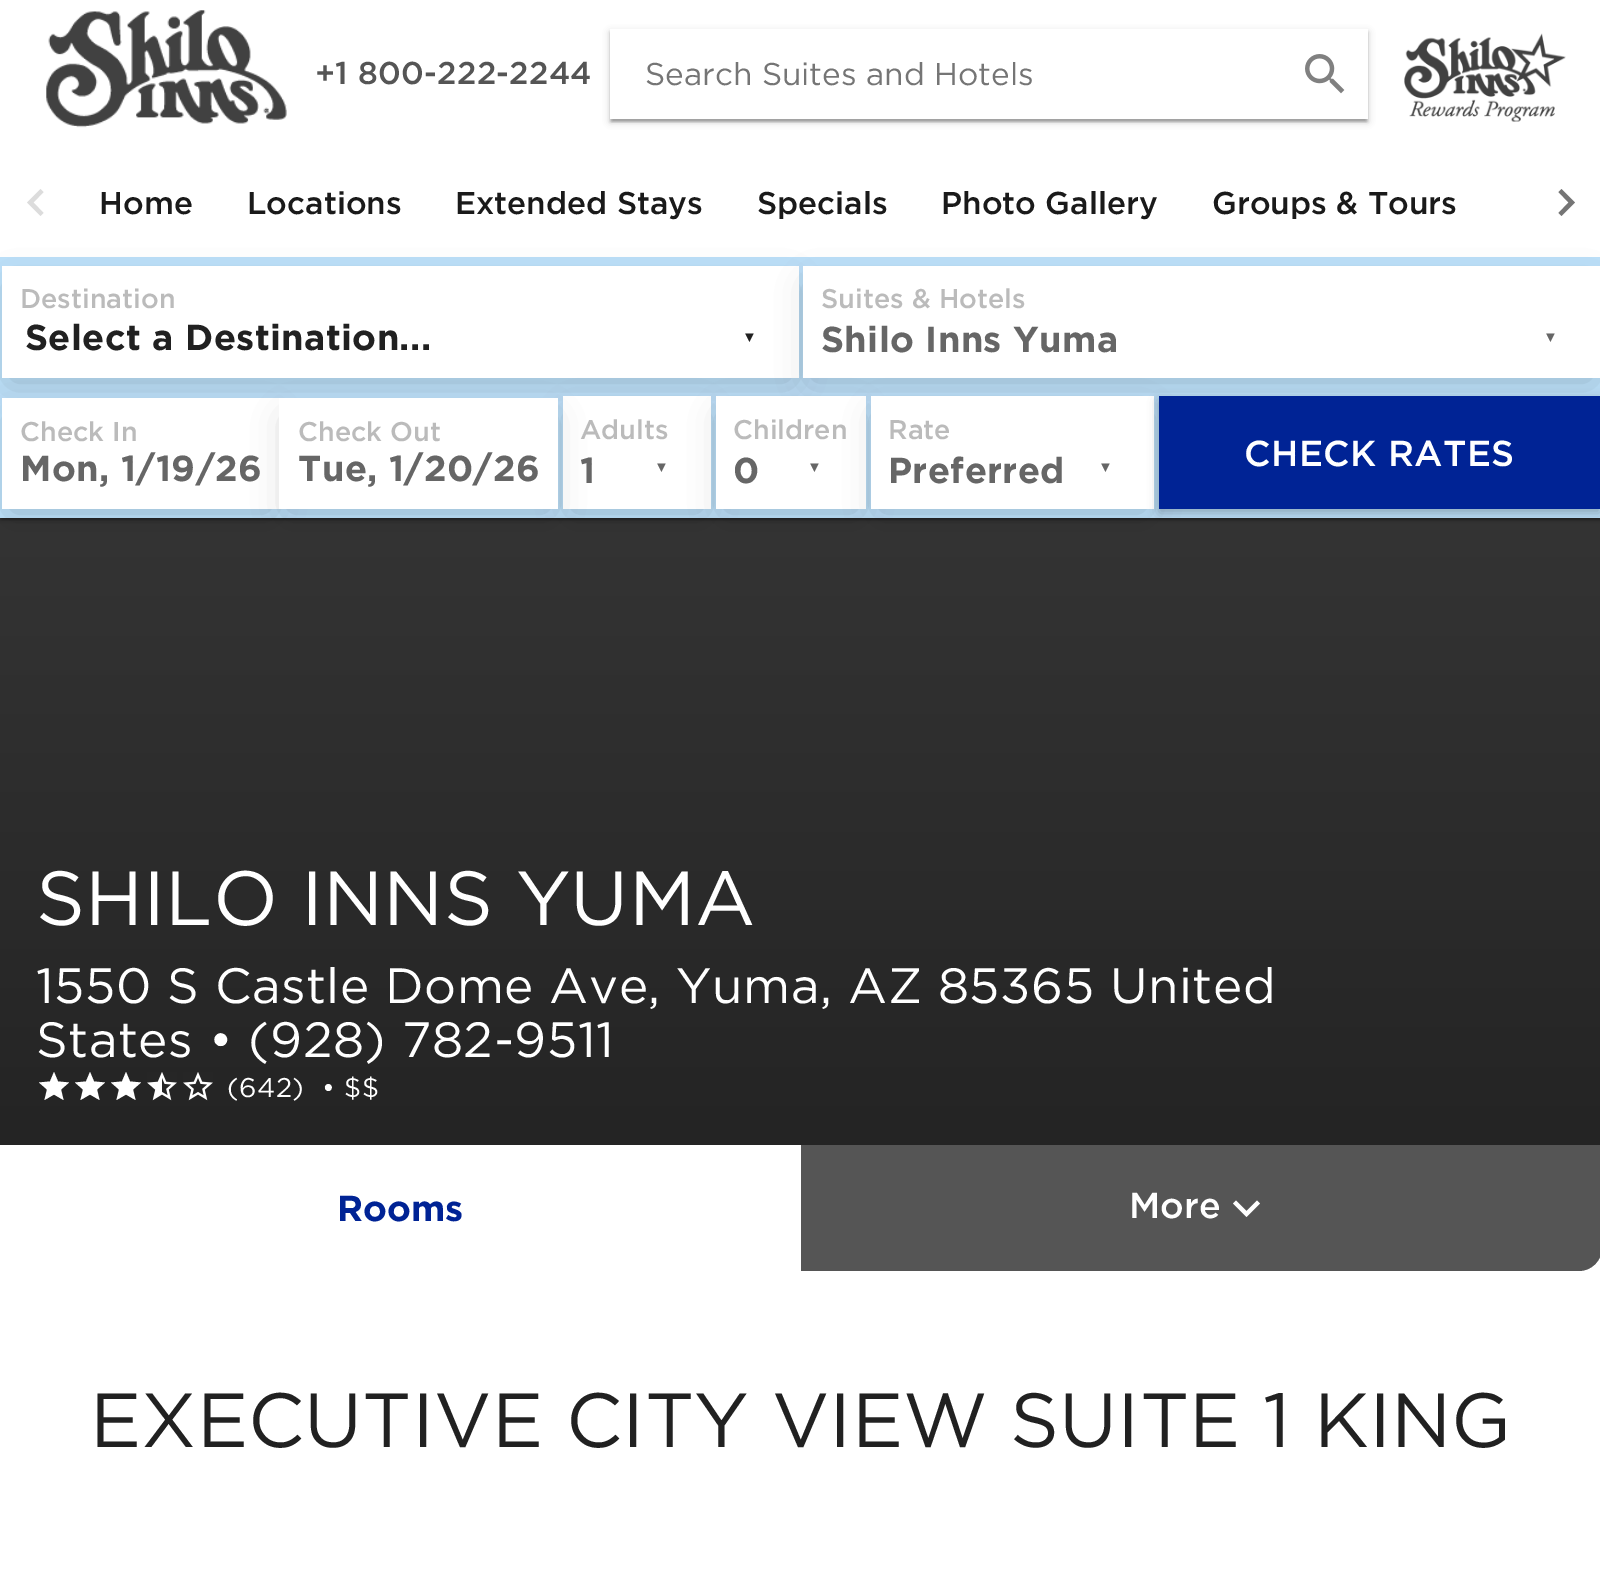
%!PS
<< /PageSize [1600 1595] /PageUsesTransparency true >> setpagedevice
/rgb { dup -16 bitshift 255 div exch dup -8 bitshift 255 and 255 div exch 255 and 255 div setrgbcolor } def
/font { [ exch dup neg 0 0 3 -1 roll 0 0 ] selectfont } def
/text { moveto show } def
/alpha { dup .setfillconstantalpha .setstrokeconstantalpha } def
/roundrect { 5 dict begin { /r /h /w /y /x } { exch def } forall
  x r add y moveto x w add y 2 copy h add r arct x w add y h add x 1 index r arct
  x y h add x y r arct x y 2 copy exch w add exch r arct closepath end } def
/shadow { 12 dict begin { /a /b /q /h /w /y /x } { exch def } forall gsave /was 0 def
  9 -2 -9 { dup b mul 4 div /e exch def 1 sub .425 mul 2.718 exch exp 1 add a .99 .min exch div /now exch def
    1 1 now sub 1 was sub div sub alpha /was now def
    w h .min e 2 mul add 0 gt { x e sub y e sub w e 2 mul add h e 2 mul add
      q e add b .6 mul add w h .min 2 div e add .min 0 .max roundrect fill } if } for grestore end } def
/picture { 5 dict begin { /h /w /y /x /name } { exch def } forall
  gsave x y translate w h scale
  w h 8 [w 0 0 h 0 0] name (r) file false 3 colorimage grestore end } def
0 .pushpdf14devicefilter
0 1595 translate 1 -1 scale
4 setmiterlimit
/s1 { /Gotham-Regular 31.5 font 16#757575 rgb } def
/s2 { /Gotham-Medium 31.5 font 16#1A1A1A rgb } def
/s3 { /Gotham-Medium 27 font 16#BBBBBB rgb } def
/s4 { /Gotham-Regular 76.5 font 16#FFFFFF rgb } def
/s5 { /Gotham-Bold 36 font 16#002395 rgb } def
/s6 { /Gotham-Medium 36 font 16#FFFFFF rgb } def
/s7 { /Gotham-Regular 76.5 font 16#212121 rgb } def
16#FFFFFF rgb
0 0 1600 1595 rectfill
gsave 0 518 moveto 1600 518 lineto 1600 1145 lineto 0 1145 lineto closepath clip newpath
<< /ShadingType 2 /ColorSpace /DeviceRGB /Coords [801 517 801 1145] /Extend [true true] /Function << /FunctionType 2 /Domain [0 1] /C0 [0.204 0.204 0.204] /C1 [0.141 0.141 0.141] /N 1 >> >> shfill grestore
16#000000 rgb
2 7 1598 513 0 1 0.12 shadow
0 2 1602 518 0 1 0.14 shadow
0 2 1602 518 0 3.5 0.2 shadow
16#FFFFFF rgb
0 0 1600 257 rectfill
(pic1.raw) 46 10 241 118 picture
/Gotham-Medium 31.5 font
16#555555 rgb
315 84 moveto 0.3 0 (+1 800-222-2244) ashow
gsave
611 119 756 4 rectclip
16#000000 rgb
612 36 754 86 0 1 0.12 shadow
grestore
gsave
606 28 moveto 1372 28 lineto 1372 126 lineto 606 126 lineto closepath 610 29 moveto 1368 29 lineto 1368 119 lineto 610 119 lineto closepath eoclip newpath
16#000000 rgb
610 32 758 90 0 1 0.14 shadow
grestore
gsave
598 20 moveto 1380 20 lineto 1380 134 lineto 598 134 lineto closepath 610 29 moveto 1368 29 lineto 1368 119 lineto 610 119 lineto closepath eoclip newpath
16#000000 rgb
610 32 758 90 0 3.5 0.2 shadow
grestore
s1
(Search Suites and Hotels) 645 85 text
(pic2.raw) 1305 54 40 40 picture
(pic3.raw) 1404 33 162 89 picture
16#DCDCDC rgb
43.5 192 moveto 40.5 189 lineto 27 202.5 lineto 40.5 216 lineto 43.5 213 lineto 33.5 202.5 lineto closepath fill
s2
(Home) 99 214 text
(Locations) 247 214 text
(Extended Stays) 455 214 text
(Specials) 757 214 text
(Photo Gallery) 941 214 text
(Groups & Tours) 1212 214 text
16#757575 rgb
1558.5 213 moveto 1561.5 216 lineto 1575 202.5 lineto 1561.5 189 lineto 1558.5 192 lineto 1568.5 202.5 lineto closepath fill
16#BBE0F9 rgb
0 257 1600 261 rectfill
16#000000 rgb
11 286 779 94 0 17 0.2 shadow
16#FFFFFF rgb
2 266 797 112 rectfill
s3
(Destination) 20 308 text
/Gotham-Bold 36 font
16#212121 rgb
25 350 moveto 0.4 0 (Select a Destination...) ashow
/LiberationSerif-Bold 15 font
742 342 moveto 15 0 (▼) ashow
16#000000 rgb
812 286 779 94 0 17 0.2 shadow
16#FFFFFF rgb
803 266 797 112 rectfill
s3
(Suites & Hotels) 821 308 text
/Gotham-Bold 36 font
16#666666 rgb
821 352 moveto 0.4 0 (Shilo Inns Yuma) ashow
/LiberationSerif-Bold 15 font
1543 342 moveto 15 0 (▼) ashow
16#000000 rgb
11 419 259 92 0 17 0.2 shadow
16#FFFFFF rgb
2 398 277 111 rectfill
s3
(Check In) 20 441 text
/Gotham-Bold 36 font
16#666666 rgb
20 481 moveto 0.4 0 (Mon, 1/19/26) ashow
16#000000 rgb
572 416 130 95 0 17 0.2 shadow
16#FFFFFF rgb
563 396 148 113 rectfill
16#000000 rgb
288 419 261 92 0 17 0.2 shadow
16#FFFFFF rgb
279 398 279 111 rectfill
s3
(Check Out) 298 441 text
/Gotham-Bold 36 font
16#666666 rgb
298 481 moveto 0.4 0 (Tue, 1/20/26) ashow
s3
(Adults) 580 439 text
/Gotham-Bold 36 font
16#666666 rgb
580 483 moveto 0.4 0 (1) ashow
/LiberationSerif-Bold 15 font
654 472 moveto 15 0 (▼) ashow
16#000000 rgb
725 416 132 95 0 17 0.2 shadow
16#FFFFFF rgb
716 396 150 113 rectfill
s3
(Children) 733 439 text
/Gotham-Bold 36 font
16#666666 rgb
733 483 moveto 0.4 0 (0) ashow
/LiberationSerif-Bold 15 font
807 472 moveto 15 0 (▼) ashow
16#000000 rgb
880 416 265 95 0 17 0.2 shadow
16#FFFFFF rgb
871 396 283 113 rectfill
s3
(Rate) 888 439 text
/Gotham-Bold 36 font
16#666666 rgb
888 483 moveto 0.4 0 (Preferred) ashow
/LiberationSerif-Bold 15 font
1098 472 moveto 15 0 (▼) ashow
16#000000 rgb
1159 401 441 112 0 5.5 0.26 shadow
16#002395 rgb
1159 396 441 113 rectfill
/Gotham-Medium 36 font
16#FFFFFF rgb
1244 466 moveto 0.4 0 (CHECK RATES) ashow
s4
(SHILO INNS YUMA) 36 925 text
/Gotham-Regular 49.5 font
36 1003 moveto 0.5 0 (1550 S Castle Dome Ave, Yuma, AZ 85365 United) ashow
36 1057 moveto 0.5 0 (States • \(928\) 782-9511) ashow
54 1094.5 moveto 44.5 1100 lineto 47 1089.5 lineto 39 1082.5 lineto 50 1081.5 lineto 54 1072 lineto 58 1081.5 lineto 69 1082.5 lineto 61 1089.5 lineto 63.5 1100 lineto closepath fill
90 1094.5 moveto 80.5 1100 lineto 83 1089.5 lineto 75 1082.5 lineto 86 1081.5 lineto 90 1072 lineto 94 1081.5 lineto 105 1082.5 lineto 97 1089.5 lineto 99.5 1100 lineto closepath fill
126 1094.5 moveto 116.5 1100 lineto 119 1089.5 lineto 111 1082.5 lineto 122 1081.5 lineto 126 1072 lineto 130 1081.5 lineto 141 1082.5 lineto 133 1089.5 lineto 135.5 1100 lineto closepath fill
(pic4.raw) 147 1072 30 29 picture
(pic5.raw) 183 1072 30 29 picture
/Gotham-Regular 27 font
227 1097 moveto 0.5 0 (\(642\)) ashow
322 1097 moveto 0.5 0 (• $$) ashow
s5
(Rooms) 337 1221 text
16#555555 rgb
801 1145 moveto 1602 1145 lineto 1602 1248 lineto 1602 1260.5 1591.5 1271 1579 1271 curveto 801 1271 lineto closepath fill
s6
(More) 1129 1218 text
1236 1200.5 moveto 1246.5 1211 lineto 1257 1200.5 lineto 1260 1203.5 lineto 1246.5 1217 lineto 1233 1203.5 lineto closepath fill
s7
(EXECUTIVE CITY VIEW SUITE 1 KING) 90 1447 text
.poppdf14devicefilter showpage
